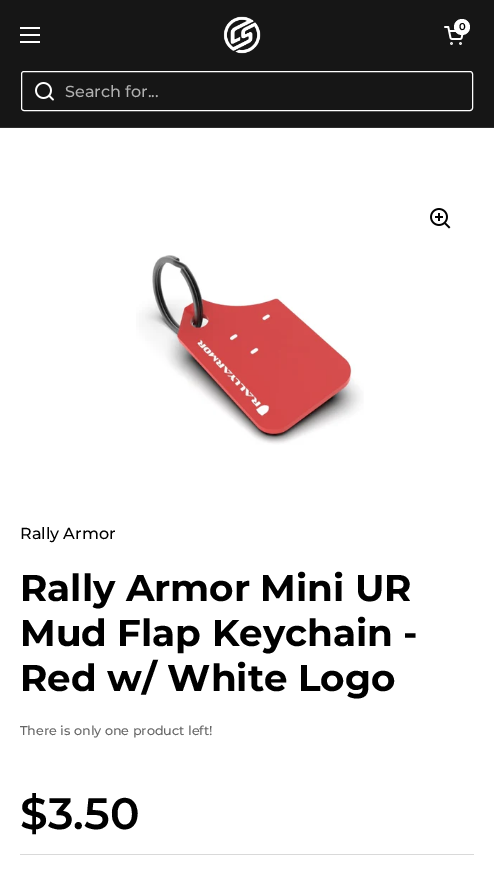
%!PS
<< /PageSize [494 872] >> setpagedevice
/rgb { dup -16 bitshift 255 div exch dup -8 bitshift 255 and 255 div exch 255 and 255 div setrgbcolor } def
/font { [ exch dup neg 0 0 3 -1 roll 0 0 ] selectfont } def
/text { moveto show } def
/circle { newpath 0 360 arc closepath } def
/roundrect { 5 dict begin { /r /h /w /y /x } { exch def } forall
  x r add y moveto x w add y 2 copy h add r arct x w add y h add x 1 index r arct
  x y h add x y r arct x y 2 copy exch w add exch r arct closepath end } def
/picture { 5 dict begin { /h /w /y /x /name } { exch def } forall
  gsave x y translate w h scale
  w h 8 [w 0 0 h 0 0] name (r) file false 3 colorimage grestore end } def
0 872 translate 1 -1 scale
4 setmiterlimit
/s1 { /Montserrat-SemiBold 10 font 16#000000 rgb } def
/s2 { /Montserrat-Medium 16 font 16#B0B0B0 rgb } def
/s3 { /Montserrat-Medium 16 font 16#000000 rgb } def
/s4 { /Montserrat-Bold 37.25 font 16#000000 rgb } def
/s5 { /Montserrat-Medium 12.75 font 16#666666 rgb } def
/s6 { /Montserrat-SemiBold 44 font 16#000000 rgb } def
16#FFFFFF rgb
0 0 494 872 rectfill
16#161616 rgb
0 0 494 127 rectfill
16#FFFFFF rgb
20 27 20 2 rectfill
20 34 20 2 rectfill
20 41 20 2 rectfill
(pic1.raw) 223 16 38 38 picture
(pic2.raw) 444 26 20 19 picture
462 27 8 circle fill
s1
(0) 459 30 text
16#2D2D2D rgb
0 127 494 1 rectfill
16#FFFFFF rgb
21.5 71.5 451 39 2.5 roundrect stroke
(pic3.raw) 35 82 19 19 picture
s2
(Search for...) 65 97 text
(pic4.raw) 430 208 21 21 picture
(pic5.raw) 136 255 228 190 picture
s3
(Rally Armor) 20 539 text
s4
(Rally Armor Mini UR) 20 601 text
(Mud Flap Keychain -) 20 646 text
(Red w/ White Logo) 20 691 text
s5
(There is only one product left!) 20 735 text
s6
($3.50) 20 829 text
16#D9D9D9 rgb
20 854 454 1 rectfill
showpage
